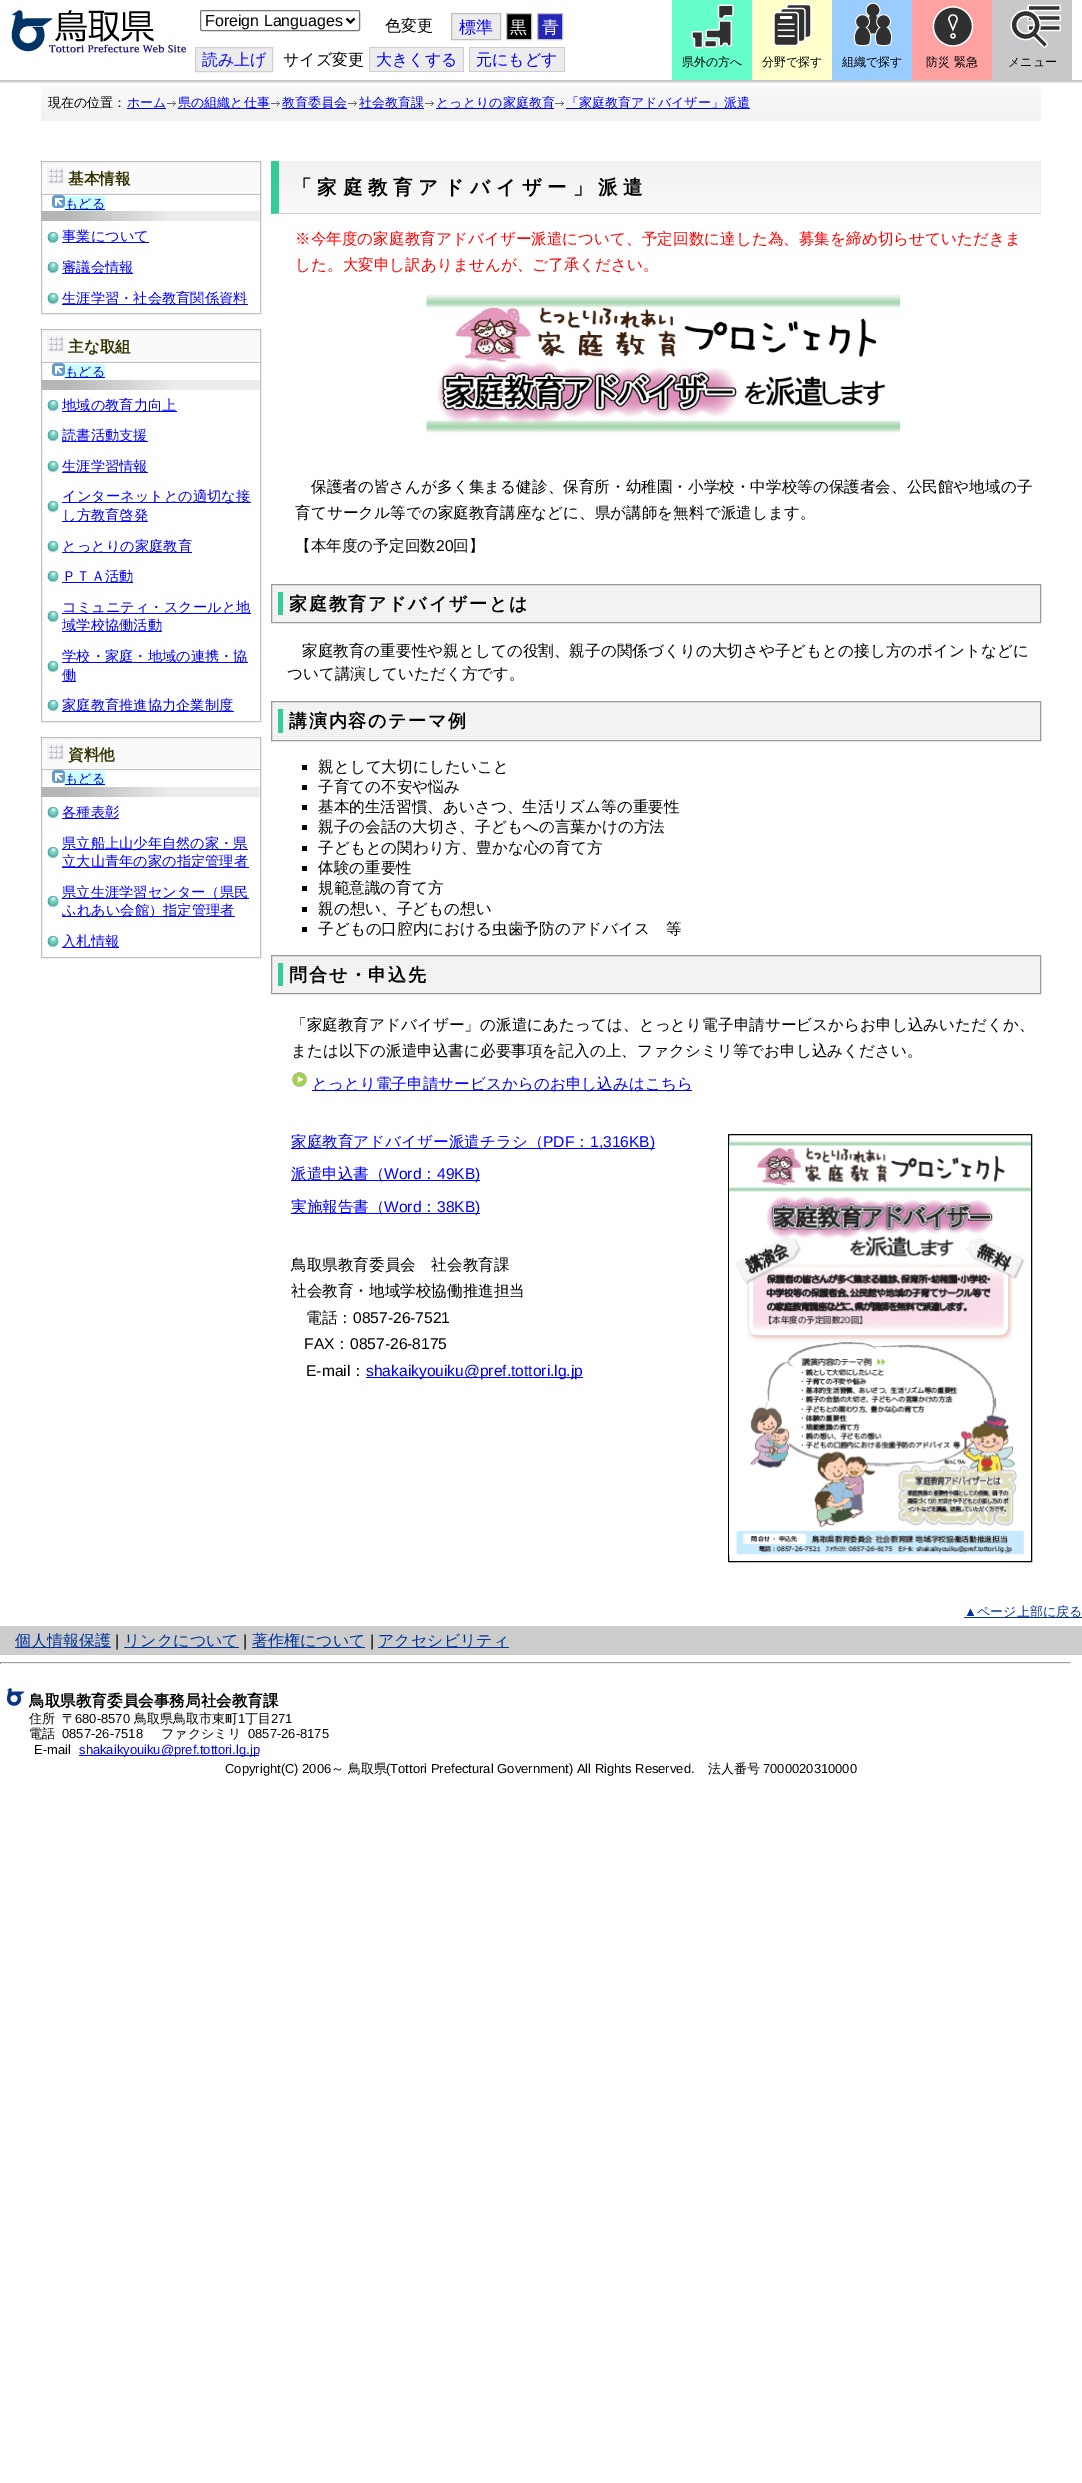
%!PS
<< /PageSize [1082 2483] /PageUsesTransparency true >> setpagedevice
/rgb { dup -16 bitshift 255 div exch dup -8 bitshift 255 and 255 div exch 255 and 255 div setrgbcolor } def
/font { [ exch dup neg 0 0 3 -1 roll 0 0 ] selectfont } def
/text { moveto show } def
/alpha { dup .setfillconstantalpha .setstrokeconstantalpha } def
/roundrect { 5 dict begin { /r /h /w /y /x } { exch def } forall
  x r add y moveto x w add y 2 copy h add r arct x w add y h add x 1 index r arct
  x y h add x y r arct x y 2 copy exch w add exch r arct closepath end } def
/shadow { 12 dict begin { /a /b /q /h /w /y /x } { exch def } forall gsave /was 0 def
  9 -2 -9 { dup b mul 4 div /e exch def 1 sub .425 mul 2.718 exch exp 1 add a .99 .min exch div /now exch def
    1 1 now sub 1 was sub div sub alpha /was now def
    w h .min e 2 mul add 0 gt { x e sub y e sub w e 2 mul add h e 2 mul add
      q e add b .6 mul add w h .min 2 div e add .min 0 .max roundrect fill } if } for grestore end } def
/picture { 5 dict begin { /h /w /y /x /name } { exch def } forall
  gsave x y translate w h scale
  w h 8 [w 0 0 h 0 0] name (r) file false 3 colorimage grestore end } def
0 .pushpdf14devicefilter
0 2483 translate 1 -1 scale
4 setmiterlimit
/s1 { /LiberationSans-Regular 16 font 16#000000 rgb } def
/s2 { /WenQuanYiZenHei-Medium 16 font 16#000000 rgb } def
/s3 { /WenQuanYiZenHei-Medium 17 font 16#0000FF rgb } def
/s4 { /WenQuanYiZenHei-Medium 17 font 16#FFFFFF rgb } def
/s5 { /WenQuanYiZenHei-Medium 16 font 16#0000FF rgb } def
/s6 { /WenQuanYiZenHei-Medium 12 font 16#000000 rgb } def
/s7 { /WenQuanYiZenHei-Medium 13 font 16#000000 rgb } def
/s8 { /WenQuanYiZenHei-Medium 13 font 16#0000FF rgb } def
/s9 { /WenQuanYiZenHei-Bold 15.6 font 16#333300 rgb } def
/s10 { /WenQuanYiZenHei-Medium 14.25 font 16#0000FF rgb } def
/s11 { /WenQuanYiZenHei-Medium 15.6 font 16#FF0000 rgb } def
/s12 { /WenQuanYiZenHei-Medium 15.6 font 16#000000 rgb } def
/s13 { /LiberationSans-Regular 15.6 font 16#000000 rgb } def
/s14 { /WenQuanYiZenHei-Medium 15.6 font 16#0000FF rgb } def
/s15 { /LiberationSans-Regular 15.6 font 16#0000FF rgb } def
/s16 { /LiberationSans-Regular 13 font 16#003399 rgb } def
/s17 { /WenQuanYiZenHei-Medium 13 font 16#003399 rgb } def
/s18 { /WenQuanYiZenHei-Medium 16 font 16#003399 rgb } def
/s19 { /WenQuanYiZenHei-Bold 15.6 font 16#000000 rgb } def
/s20 { /LiberationSans-Regular 13 font 16#000000 rgb } def
/s21 { /LiberationSans-Regular 13 font 16#0000FF rgb } def
16#FFFFFF rgb
0 0 1082 2483 rectfill
gsave 41 85 moveto 1041 85 lineto 1041 121 lineto 41 121 lineto closepath clip newpath
<< /ShadingType 2 /ColorSpace /DeviceRGB /Coords [541 85 541 121] /Extend [true true] /Function << /FunctionType 2 /Domain [0 1] /C0 [0.98 0.98 0.98] /C1 [0.945 0.945 0.945] /N 1 >> >> shfill grestore
gsave
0 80 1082 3 rectclip
16#000000 rgb
-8 1 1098 80 0 2.5 0.1 shadow
-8 1 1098 80 0 2.5 0.1 shadow
-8 1 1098 80 0 2.5 0.1 shadow
-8 1 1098 80 0 2.5 0.1 shadow
grestore
(pic1.raw) 11 10 175 43 picture
16#767676 rgb
200.5 10.5 159 20 1.5 roundrect stroke
16#000000 rgb
2 setlinewidth
346.5 18.5 moveto 350.5 22.5 lineto 354.5 18.5 lineto stroke
s1
(Foreign Languages) 205 26 text
s2
(色変更) 385 31 text
16#ECECEC rgb
451.5 13.5 moveto 500.5 13.5 lineto 500.5 39.5 lineto 451.5 39.5 lineto closepath gsave fill grestore
16#BFBFBF rgb
1 setlinewidth
stroke
s3
(標準) 459 33 text
16#000000 rgb
506.5 13.5 moveto 531.5 13.5 lineto 531.5 39.5 lineto 506.5 39.5 lineto closepath gsave fill grestore
16#BFBFBF rgb
stroke
s4
(黒) 510 33 text
16#2525B8 rgb
537.5 13.5 moveto 562.5 13.5 lineto 562.5 39.5 lineto 537.5 39.5 lineto closepath gsave fill grestore
16#BFBFBF rgb
stroke
s4
(青) 542 33 text
16#ECECEC rgb
195.5 47.5 moveto 272.5 47.5 lineto 272.5 71.5 lineto 195.5 71.5 lineto closepath gsave fill grestore
16#CECECE rgb
stroke
s5
(読み上げ) 202 65 text
s2
(サイズ変更) 283 65 text
16#ECECEC rgb
370 48 93 23 rectfill
s5
(大きくする) 376 65 text
16#CECECE rgb
369 47 95 1 rectfill
369 71 23 1 rectfill
369 47 1 25 rectfill
463 47 1 25 rectfill
392 71 72 1 rectfill
16#ECECEC rgb
470 48 94 23 rectfill
s5
(元にもどす) 476 65 text
16#CECECE rgb
469 47 96 1 rectfill
469 71 23 1 rectfill
469 47 1 25 rectfill
564 47 1 25 rectfill
492 71 73 1 rectfill
16#66FFCC rgb
672 0 80 80 rectfill
(pic2.raw) 691 4 43 45 picture
s6
(県外の方へ) 682 66 text
16#FFFFCC rgb
752 0 80 80 rectfill
(pic3.raw) 773 3 39 44 picture
s6
(分野で探す) 762 66 text
16#99CCFF rgb
832 0 80 80 rectfill
(pic4.raw) 854 2 39 44 picture
s6
(組織で探す) 842 66 text
16#FFA1A1 rgb
912 0 80 80 rectfill
(pic5.raw) 932 6 42 41 picture
s6
(防災 緊急) 926 66 text
16#C8C8CB rgb
992 0 80 80 rectfill
(pic6.raw) 1010 4 51 44 picture
s6
(メニュー) 1008 66 text
s7
(現在の位置：) 48 107 text
16#0000FF rgb
127 108 39 1 rectfill
(ホーム) 127 107 text
(pic7.raw) 167 101 9 5 picture
178 108 92 1 rectfill
(県の組織と仕事) 178 107 text
(pic7.raw) 271 101 9 5 picture
282 108 65 1 rectfill
(教育委員会) 282 107 text
(pic7.raw) 348 101 9 5 picture
359 108 65 1 rectfill
(社会教育課) 359 107 text
(pic7.raw) 425 101 9 5 picture
436 108 118 1 rectfill
(とっとりの家庭教育) 436 107 text
(pic7.raw) 555 101 9 5 picture
566 108 184 1 rectfill
(「家庭教育アドバイザー」派遣) 566 107 text
16#BFBFBF rgb
41.5 161.5 219 152 rectstroke
(pic8.raw) 42 163 218 31 picture
42 194 218 1 rectfill
(pic9.raw) 47 167 17 17 picture
s9
(基本情報) 68 184 text
16#CCFFFF rgb
52 195 13 13 rectfill
(pic10.raw) 52 195 13 13 picture
65 196 40 15 rectfill
16#0000FF rgb
65 209 40 1 rectfill
s8
(もどる) 65 208 text
gsave 42 211 moveto 260 211 lineto 260 221 lineto 42 221 lineto closepath clip newpath
<< /ShadingType 2 /ColorSpace /DeviceRGB /Coords [42 216 260 216] /Extend [true true] /Function << /FunctionType 3 /Domain [0 1] /Functions [<< /FunctionType 2 /Domain [0 1] /C0 [0.71 0.71 0.71] /C1 [0.71 0.71 0.71] /N 1 >> << /FunctionType 2 /Domain [0 1] /C0 [0.71 0.71 0.71] /C1 [0.922 0.925 0.925] /N 1 >> << /FunctionType 2 /Domain [0 1] /C0 [0.922 0.925 0.925] /C1 [0.922 0.925 0.925] /N 1 >>] /Bounds [0.1 0.6] /Encode [0 1 0 1 0 1] >> >> shfill grestore
(pic11.raw) 47 232 12 12 picture
62 242 87 1 rectfill
s10
(事業について) 62 241 text
(pic11.raw) 47 262 12 12 picture
62 273 71 1 rectfill
(審議会情報) 62 272 text
(pic11.raw) 47 293 12 12 picture
62 304 186 1 rectfill
(生涯学習・社会教育関係資料) 62 303 text
16#BFBFBF rgb
41.5 329.5 219 392 rectstroke
(pic8.raw) 42 331 218 31 picture
42 362 218 1 rectfill
(pic9.raw) 47 335 17 17 picture
s9
(主な取組) 68 352 text
16#CCFFFF rgb
52 363 13 13 rectfill
(pic10.raw) 52 363 13 13 picture
65 364 40 15 rectfill
16#0000FF rgb
65 377 40 1 rectfill
s8
(もどる) 65 376 text
gsave 42 380 moveto 260 380 lineto 260 390 lineto 42 390 lineto closepath clip newpath
<< /ShadingType 2 /ColorSpace /DeviceRGB /Coords [42 385 260 385] /Extend [true true] /Function << /FunctionType 3 /Domain [0 1] /Functions [<< /FunctionType 2 /Domain [0 1] /C0 [0.71 0.71 0.71] /C1 [0.71 0.71 0.71] /N 1 >> << /FunctionType 2 /Domain [0 1] /C0 [0.71 0.71 0.71] /C1 [0.922 0.925 0.925] /N 1 >> << /FunctionType 2 /Domain [0 1] /C0 [0.922 0.925 0.925] /C1 [0.922 0.925 0.925] /N 1 >>] /Bounds [0.1 0.6] /Encode [0 1 0 1 0 1] >> >> shfill grestore
(pic11.raw) 47 400 12 12 picture
62 411 115 1 rectfill
s10
(地域の教育力向上) 62 410 text
(pic11.raw) 47 430 12 12 picture
62 441 86 1 rectfill
(読書活動支援) 62 440 text
(pic11.raw) 47 461 12 12 picture
62 472 86 1 rectfill
(生涯学習情報) 62 471 text
(pic11.raw) 47 501 12 12 picture
62 502 189 1 rectfill
(インターネットとの適切な接) 62 501 text
62 521 86 1 rectfill
(し方教育啓発) 62 520 text
(pic11.raw) 47 541 12 12 picture
62 552 130 1 rectfill
(とっとりの家庭教育) 62 551 text
(pic11.raw) 47 571 12 12 picture
62 582 71 1 rectfill
(ＰＴＡ活動) 62 581 text
(pic11.raw) 47 611 12 12 picture
62 613 189 1 rectfill
(コミュニティ・スクールと地) 62 612 text
62 631 100 1 rectfill
(域学校協働活動) 62 630 text
(pic11.raw) 47 661 12 12 picture
62 662 186 1 rectfill
(学校・家庭・地域の連携・協) 62 661 text
62 681 14 1 rectfill
(働) 62 680 text
(pic11.raw) 47 700 12 12 picture
62 711 172 1 rectfill
(家庭教育推進協力企業制度) 62 710 text
16#BFBFBF rgb
41.5 737.5 219 220 rectstroke
(pic12.raw) 42 739 218 29 picture
42 769 218 1 rectfill
(pic9.raw) 47 743 17 17 picture
s9
(資料他) 68 760 text
16#CCFFFF rgb
52 770 13 13 rectfill
(pic10.raw) 52 770 13 13 picture
65 771 40 15 rectfill
16#0000FF rgb
65 784 40 1 rectfill
s8
(もどる) 65 783 text
gsave 42 787 moveto 260 787 lineto 260 797 lineto 42 797 lineto closepath clip newpath
<< /ShadingType 2 /ColorSpace /DeviceRGB /Coords [42 792 260 792] /Extend [true true] /Function << /FunctionType 3 /Domain [0 1] /Functions [<< /FunctionType 2 /Domain [0 1] /C0 [0.71 0.71 0.71] /C1 [0.71 0.71 0.71] /N 1 >> << /FunctionType 2 /Domain [0 1] /C0 [0.71 0.71 0.71] /C1 [0.922 0.925 0.925] /N 1 >> << /FunctionType 2 /Domain [0 1] /C0 [0.922 0.925 0.925] /C1 [0.922 0.925 0.925] /N 1 >>] /Bounds [0.1 0.6] /Encode [0 1 0 1 0 1] >> >> shfill grestore
(pic11.raw) 47 807 12 12 picture
62 818 57 1 rectfill
s10
(各種表彰) 62 817 text
(pic11.raw) 47 847 12 12 picture
62 849 186 1 rectfill
(県立船上山少年自然の家・県) 62 848 text
62 867 187 1 rectfill
(立大山青年の家の指定管理者) 62 866 text
(pic11.raw) 47 896 12 12 picture
62 898 187 1 rectfill
(県立生涯学習センター（県民) 62 897 text
62 916 173 1 rectfill
(ふれあい会館）指定管理者) 62 915 text
(pic11.raw) 47 936 12 12 picture
62 947 57 1 rectfill
(入札情報) 62 946 text
gsave 279 161 moveto 1040 161 lineto 1040 213 lineto 279 213 lineto closepath clip newpath
<< /ShadingType 2 /ColorSpace /DeviceRGB /Coords [660 161 660 213] /Extend [true true] /Function << /FunctionType 2 /Domain [0 1] /C0 [0.945 0.945 0.945] /C1 [0.98 0.98 0.98] /N 1 >> >> shfill grestore
16#EEEEEE rgb
1040 161 1 53 rectfill
16#CCCCCC rgb
1041 214 moveto 271 214 lineto 279 213 lineto 1040 213 lineto closepath fill
16#33CC99 rgb
271 214 moveto 271 161 lineto 279 161 lineto 279 213 lineto closepath fill
/WenQuanYiZenHei-Bold 19.5 font
16#000000 rgb
292 194 moveto 5.8 0 (「家庭教育アドバイザー」派遣) ashow
s11
(※今年度の家庭教育アドバイザー派遣について、予定回数に達した為、募集を締め切らせていただきま) 295 244 text
(した。大変申し訳ありませんが、ご了承ください。) 295 270 text
(pic13.raw) 426 294 475 139 picture
s12
(保護者の皆さんが多く集まる健診、保育所・幼稚園・小学校・中学校等の保護者会、公民館や地域の子) 311 492 text
(育てサークル等での家庭教育講座などに、県が講師を無料で派遣します。) 295 518 text
(【本年度の予定回数) 295 551 text
s13
(20) 436 551 text
s12
(回】) 453 551 text
(pic14.raw) 272 585 768 37 picture
16#999999 rgb
271.5 584.5 769 38 rectstroke
16#33CC99 rgb
278 592 5 23 rectfill
/WenQuanYiZenHei-Bold 18 font
16#000000 rgb
289 610 moveto 1.75 0 (家庭教育アドバイザーとは) ashow
s12
(家庭教育の重要性や親としての役割、親子の関係づくりの大切さや子どもとの接し方のポイントなどに) 302 656 text
(ついて講演していただく方です。) 287 679 text
(pic15.raw) 272 702 768 38 picture
16#999999 rgb
271.5 701.5 769 39 rectstroke
16#33CC99 rgb
278 709 5 24 rectfill
/WenQuanYiZenHei-Bold 18 font
16#000000 rgb
289 727 moveto 1.75 0 (講演内容のテーマ例) ashow
302 765 5 5 rectfill
s12
(親として大切にしたいこと) 318 772 text
302 785 5 5 rectfill
(子育ての不安や悩み) 318 792 text
302 805 5 5 rectfill
(基本的生活習慣、あいさつ、生活リズム等の重要性) 318 812 text
302 825 5 5 rectfill
(親子の会話の大切さ、子どもへの言葉かけの方法) 318 832 text
302 846 5 5 rectfill
(子どもとの関わり方、豊かな心の育て方) 318 853 text
302 866 5 5 rectfill
(体験の重要性) 318 873 text
302 886 5 5 rectfill
(規範意識の育て方) 318 893 text
302 907 5 5 rectfill
(親の想い、子どもの想い) 318 914 text
302 927 5 5 rectfill
(子どもの口腔内における虫歯予防のアドバイス　等) 318 934 text
(pic14.raw) 272 956 768 37 picture
16#999999 rgb
271.5 955.5 769 38 rectstroke
16#33CC99 rgb
278 963 5 23 rectfill
/WenQuanYiZenHei-Bold 18 font
16#000000 rgb
289 981 moveto 1.75 0 (問合せ・申込先) ashow
s12
(「家庭教育アドバイザー」の派遣にあたっては、とっとり電子申請サービスからお申し込みいただくか、) 291 1030 text
(または以下の派遣申込書に必要事項を記入の上、ファクシミリ等でお申し込みください。) 291 1056 text
(pic16.raw) 292 1072 15 15 picture
16#0000FF rgb
312 1090 380 1 rectfill
(とっとり電子申請サービスからのお申し込みはこちら) 312 1089 text
291 1148 364 1 rectfill
(家庭教育アドバイザー派遣チラシ（) 291 1147 text
s15
(PDF) 543 1147 text
s14
(：) 574 1147 text
s15
(1,316KB\)) 590 1147 text
16#000000 rgb
728.5 1134.5 303 427 rectstroke
(pic17.raw) 729 1141 302 414 picture
16#0000FF rgb
291 1180 189 1 rectfill
s14
(派遣申込書（) 291 1179 text
s15
(Word) 384 1179 text
s14
(：) 421 1179 text
s15
(49KB\)) 437 1179 text
291 1213 189 1 rectfill
s14
(実施報告書（) 291 1212 text
s15
(Word) 384 1212 text
s14
(：) 421 1212 text
s15
(38KB\)) 437 1212 text
s12
(鳥取県教育委員会　社会教育課) 291 1270 text
(社会教育・地域学校協働推進担当) 291 1296 text
(電話：) 306 1323 text
s13
(0857-26-7521) 353 1323 text
(FAX) 304 1349 text
s12
(：) 334 1349 text
s13
(0857-26-8175) 350 1349 text
(E-mail) 306 1376 text
s12
(：) 350 1376 text
16#0000FF rgb
366 1377 217 1 rectfill
s15
(shakaikyouiku@pref.tottori.lg.jp) 366 1376 text
s16
(▲) 964 1616 text
964 1617 118 1 rectfill
s17
(ページ上部に戻る) 977 1616 text
16#CCCCCC rgb
0 1626 1082 29 rectfill
16#003399 rgb
15 1647 96 1 rectfill
s18
(個人情報保護) 15 1646 text
s1
(|) 115 1646 text
16#003399 rgb
124 1647 115 1 rectfill
s18
(リンクについて) 124 1646 text
s1
(|) 243 1646 text
16#003399 rgb
252 1647 113 1 rectfill
s18
(著作権について) 252 1646 text
s1
(|) 370 1646 text
16#003399 rgb
378 1647 131 1 rectfill
s18
(アクセシビリティ) 378 1646 text
16#9F9F9F rgb
0 1662 1071 1 rectfill
16#EEEEEE rgb
1070 1662 1 2 rectfill
0 1663 1071 1 rectfill
16#9F9F9F rgb
0 1662 1 2 rectfill
(pic18.raw) 7 1688 18 18 picture
s19
(鳥取県教育委員会事務局社会教育課) 29 1706 text
s7
(住所) 29 1723 text
(〒) 62 1723 text
s20
(680-8570) 75 1723 text
s7
(鳥取県鳥取市東町) 134 1723 text
s20
(1) 238 1723 text
s7
(丁目) 245 1723 text
s20
(271) 271 1723 text
s7
(電話) 29 1738 text
s20
(0857-26-7518) 62 1738 text
s7
(ファクシミリ) 161 1738 text
s20
(0857-26-8175) 248 1738 text
(E-mail) 34 1754 text
16#0000FF rgb
79 1755 180 1 rectfill
(shakaikyouiku@pref.tottori.lg.jp) 79 1754 text
s20
(Copyright\(C\) 2006) 225 1773 text
s7
(～ 鳥取県) 331 1773 text
s20
(\(Tottori Prefectural Government\) All Rights Reserved.) 386 1773 text
s7
(法人番号) 708 1773 text
s20
(7000020310000) 763 1773 text
.poppdf14devicefilter showpage
